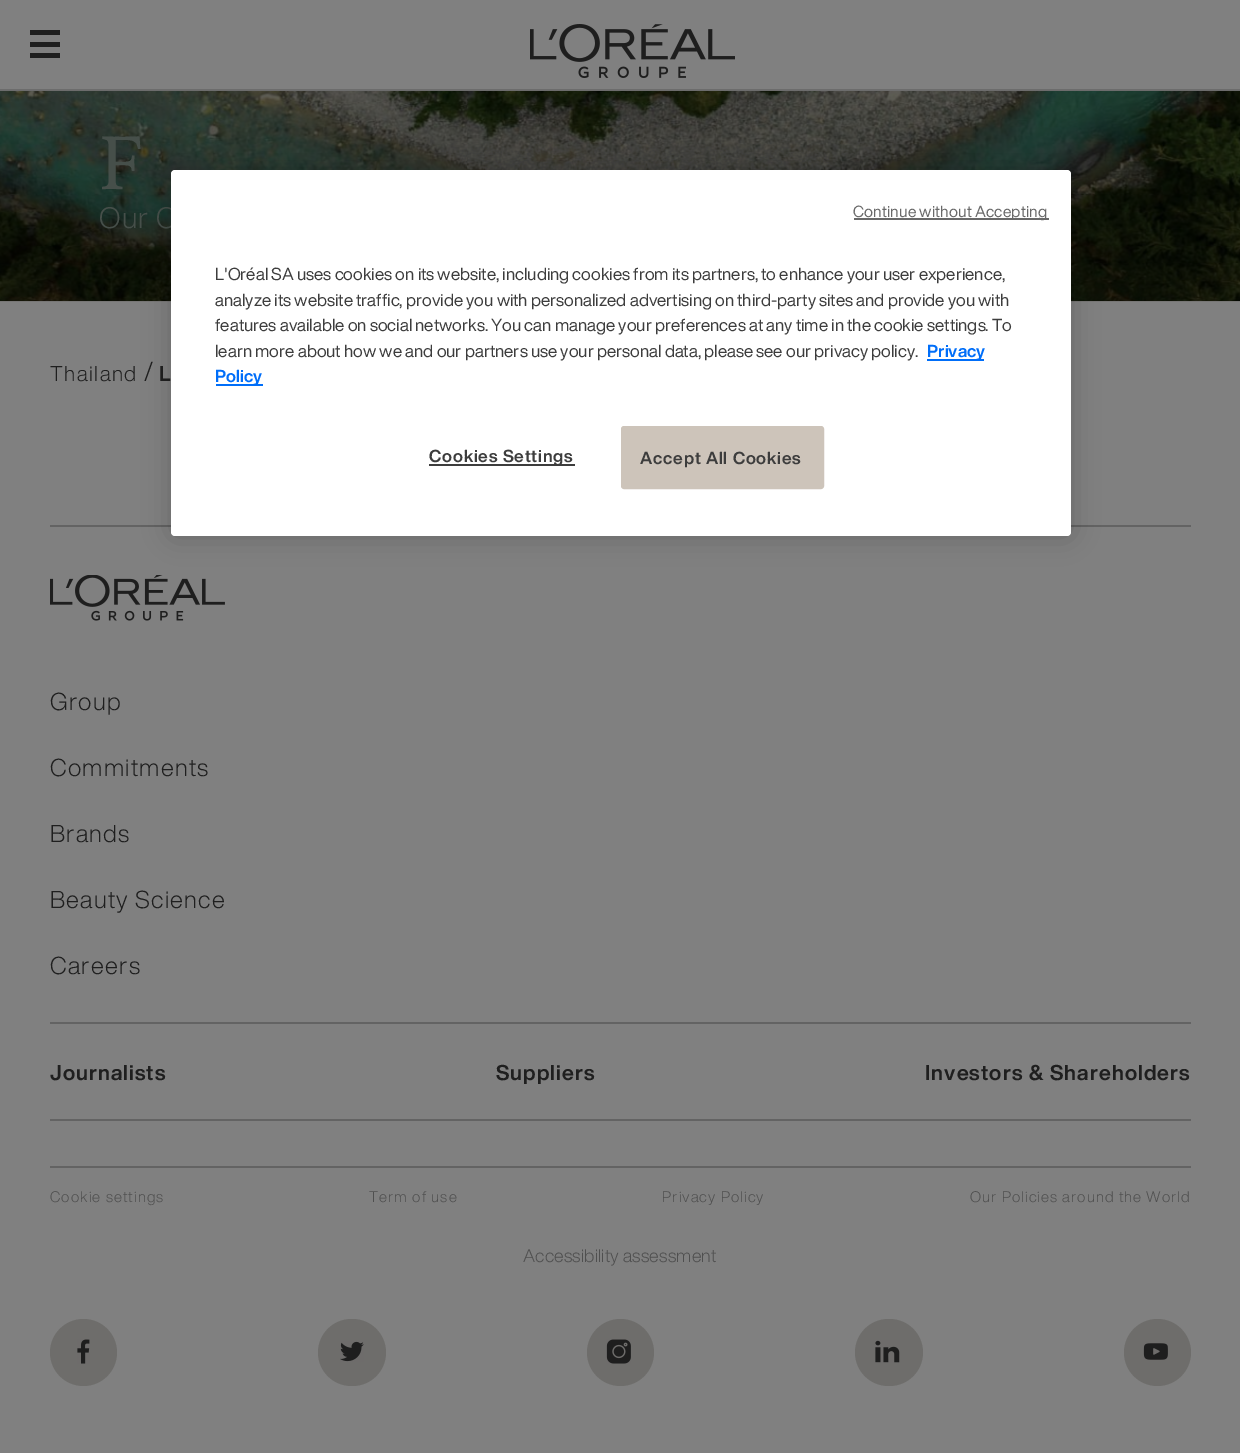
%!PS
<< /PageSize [1240 1453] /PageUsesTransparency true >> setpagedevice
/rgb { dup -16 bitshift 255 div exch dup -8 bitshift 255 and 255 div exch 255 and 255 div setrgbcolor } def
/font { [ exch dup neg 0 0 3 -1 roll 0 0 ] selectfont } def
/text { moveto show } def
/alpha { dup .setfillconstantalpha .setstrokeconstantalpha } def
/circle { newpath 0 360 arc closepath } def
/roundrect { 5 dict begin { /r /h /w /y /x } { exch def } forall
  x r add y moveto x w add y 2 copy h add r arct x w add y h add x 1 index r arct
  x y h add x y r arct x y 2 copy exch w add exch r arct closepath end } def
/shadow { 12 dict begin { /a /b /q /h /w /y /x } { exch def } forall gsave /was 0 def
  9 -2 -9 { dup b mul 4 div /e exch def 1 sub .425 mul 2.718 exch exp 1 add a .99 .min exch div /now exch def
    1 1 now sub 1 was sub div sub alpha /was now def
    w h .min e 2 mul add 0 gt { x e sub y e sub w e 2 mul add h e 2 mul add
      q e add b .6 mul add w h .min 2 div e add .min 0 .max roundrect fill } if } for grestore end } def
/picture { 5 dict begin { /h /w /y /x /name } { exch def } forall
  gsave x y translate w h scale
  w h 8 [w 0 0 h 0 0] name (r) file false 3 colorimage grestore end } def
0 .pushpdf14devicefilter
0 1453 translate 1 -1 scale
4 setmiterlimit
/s1 { /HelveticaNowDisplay-Regular 17.05 font 16#3D3D3D rgb } def
/s2 { /HelveticaNowDisplay-Bold 17.05 font 16#006EF9 rgb } def
16#777675 rgb
0 0 1240 1453 rectfill
16#808080 rgb
0 0 1240 89 rectfill
16#6C6C6C rgb
0 89 1240 2 rectfill
16#1F1F1F rgb
30 30 30 5 rectfill
30 42 30 5 rectfill
30 53 30 5 rectfill
(pic1.raw) 530 24 205 54 picture
(pic2.raw) 0 91 1240 210 picture
/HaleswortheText-Medium 75 font
16#464F4A rgb
99 189 moveto 4 0 (F) ashow
/HelveticaNowDisplay-Light 29 font
99 228 moveto 1.05 0 (Our C) ashow
16#808080 rgb
0 302 1240 1151 rectfill
/HelveticaNowDisplay-Light 21 font
16#1F1F1F rgb
50 381 moveto 1.5 0 (Thailand) ashow
/HelveticaNowDisplay-Light 27 font
144 381 moveto 1.5 0 (/) ashow
/HelveticaNowDisplay-Bold 21 font
159 381 moveto 1.5 0 (L) ashow
16#636363 rgb
50 525 1141 2 rectfill
(pic3.raw) 50 575 175 46 picture
/HelveticaNowDisplay-Light 24 font
16#1F1F1F rgb
50 710 moveto 1.25 0 (Group) ashow
50 776 moveto 1.25 0 (Commitments) ashow
50 842 moveto 1.25 0 (Brands) ashow
50 908 moveto 1.25 0 (Beauty Science) ashow
50 974 moveto 1.25 0 (Careers) ashow
16#636363 rgb
50 1022 1141 2 rectfill
50 1119 1141 2 rectfill
/HelveticaNowDisplay-Bold 21 font
16#1F1F1F rgb
50 1080 moveto 1.05 0 (Journalists) ashow
496 1080 moveto 1.05 0 (Suppliers) ashow
925 1080 moveto 1.05 0 (Investors & Shareholders) ashow
16#636363 rgb
50 1166 1141 2 rectfill
/HelveticaNowDisplay-Light 15 font
16#4F4F4F rgb
50 1202 moveto 1.05 0 (Cookie settings) ashow
369 1202 moveto 1.05 0 (Term of use) ashow
662 1202 moveto 1.05 0 (Privacy Policy) ashow
970 1202 moveto 1.05 0 (Our Policies around the World) ashow
/HelveticaNowDisplay-Light 18 font
523 1262 moveto 0.15 0 (Accessibility assessment) ashow
16#6E6D6B rgb
83.5 1352.5 33.5 circle fill
(pic4.raw) 77 1339 13 25 picture
318 1319 68 67 33.5 roundrect fill
(pic5.raw) 340 1341 24 21 picture
620.5 1352.5 33.5 circle fill
(pic6.raw) 606 1339 25 25 picture
855 1319 68 67 33.5 roundrect fill
(pic7.raw) 875 1340 25 23 picture
1157.5 1352.5 33.5 circle fill
(pic8.raw) 1143 1343 25 17 picture
16#000000 rgb
171 170 900 366 4 13.5 0.2 shadow
16#FFFFFF rgb
171 170 900 366 4 roundrect fill
16#696969 rgb
854 218 195 2 rectfill
/HelveticaNowDisplay-Regular 15.75 font
853 217 moveto 0.15 0 (Continue without Accepting) ashow
s1
(L'Oréal SA uses cookies on its website, including cookies from its partners, to enhance your user experience,) 215 280 text
(analyze its website traffic, provide you with personalized advertising on third-party sites and provide you with) 215 306 text
(features available on social networks. You can manage your preferences at any time in the cookie settings. To) 215 331 text
(learn more about how we and our partners use your personal data, please see our privacy policy.) 215 357 text
16#006EF9 rgb
927 359 57 2 rectfill
s2
(Privacy) 927 357 text
216 384 47 2 rectfill
(Policy) 215 382 text
16#3D3D3D rgb
429 464 146 2 rectfill
429 462 moveto 0.8 0 (Cookies Settings) ashow
16#CDC4BA rgb
622 427 201 61 2 roundrect gsave fill grestore
2 setlinewidth
stroke
16#3D3D3D rgb
640 464 moveto 0.8 0 (Accept All Cookies) ashow
.poppdf14devicefilter showpage
